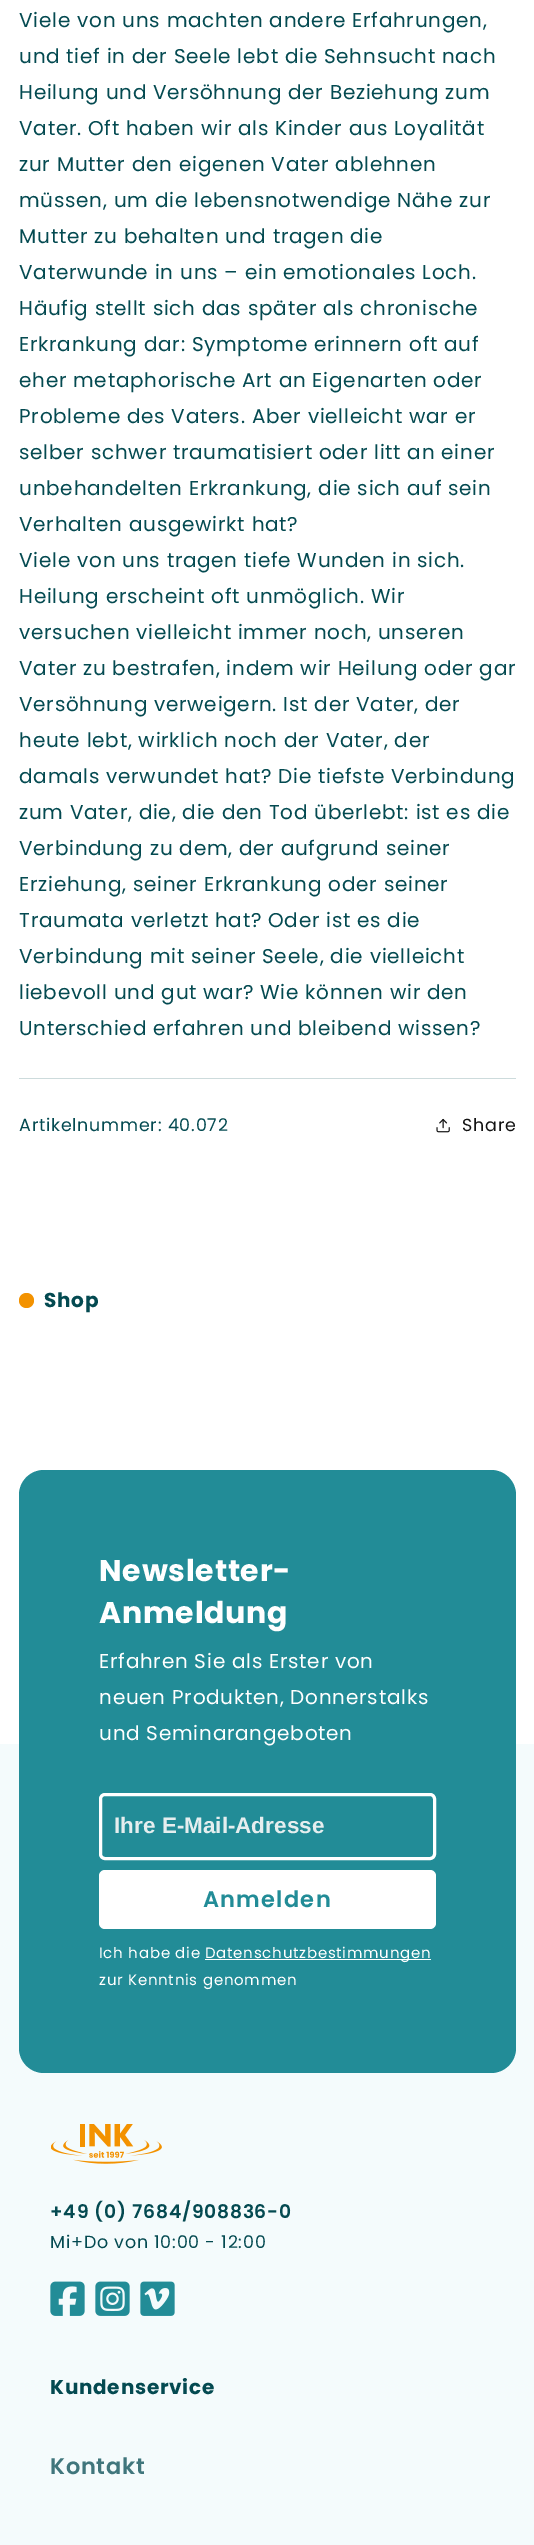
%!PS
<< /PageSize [534 2545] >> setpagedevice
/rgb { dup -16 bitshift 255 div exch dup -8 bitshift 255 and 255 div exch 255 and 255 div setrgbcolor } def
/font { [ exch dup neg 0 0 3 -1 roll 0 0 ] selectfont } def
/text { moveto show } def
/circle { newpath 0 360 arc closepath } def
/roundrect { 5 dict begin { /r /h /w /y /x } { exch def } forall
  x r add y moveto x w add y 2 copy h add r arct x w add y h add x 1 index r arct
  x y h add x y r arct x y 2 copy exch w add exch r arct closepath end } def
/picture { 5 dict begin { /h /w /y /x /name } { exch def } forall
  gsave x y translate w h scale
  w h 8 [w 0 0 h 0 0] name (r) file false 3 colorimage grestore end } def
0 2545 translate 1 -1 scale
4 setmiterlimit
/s1 { /LiberationSans-Bold 22.5 font 16#E5EEEF rgb } def
16#FFFFFF rgb
0 0 534 2545 rectfill
/Poppins-Regular 20 font
16#044A51 rgb
19 27 moveto 0.75 0 (Viele von uns machten andere Erfahrungen,) ashow
19 63 moveto 0.75 0 (und tief in der Seele lebt die Sehnsucht nach) ashow
19 99 moveto 0.75 0 (Heilung und Versöhnung der Beziehung zum) ashow
19 135 moveto 0.75 0 (Vater. Oft haben wir als Kinder aus Loyalität) ashow
19 171 moveto 0.75 0 (zur Mutter den eigenen Vater ablehnen) ashow
19 207 moveto 0.75 0 (müssen, um die lebensnotwendige Nähe zur) ashow
19 243 moveto 0.75 0 (Mutter zu behalten und tragen die) ashow
19 279 moveto 0.75 0 (Vaterwunde in uns – ein emotionales Loch.) ashow
19 315 moveto 0.75 0 (Häufig stellt sich das später als chronische) ashow
19 351 moveto 0.75 0 (Erkrankung dar: Symptome erinnern oft auf) ashow
19 387 moveto 0.75 0 (eher metaphorische Art an Eigenarten oder) ashow
19 423 moveto 0.75 0 (Probleme des Vaters. Aber vielleicht war er) ashow
19 459 moveto 0.75 0 (selber schwer traumatisiert oder litt an einer) ashow
19 495 moveto 0.75 0 (unbehandelten Erkrankung, die sich auf sein) ashow
19 531 moveto 0.75 0 (Verhalten ausgewirkt hat?) ashow
19 567 moveto 0.75 0 (Viele von uns tragen tiefe Wunden in sich.) ashow
19 603 moveto 0.75 0 (Heilung erscheint oft unmöglich. Wir) ashow
19 639 moveto 0.75 0 (versuchen vielleicht immer noch, unseren) ashow
19 675 moveto 0.75 0 (Vater zu bestrafen, indem wir Heilung oder gar) ashow
19 711 moveto 0.75 0 (Versöhnung verweigern. Ist der Vater, der) ashow
19 747 moveto 0.75 0 (heute lebt, wirklich noch der Vater, der) ashow
19 783 moveto 0.75 0 (damals verwundet hat? Die tiefste Verbindung) ashow
19 819 moveto 0.75 0 (zum Vater, die, die den Tod überlebt: ist es die) ashow
19 855 moveto 0.75 0 (Verbindung zu dem, der aufgrund seiner) ashow
19 891 moveto 0.75 0 (Erziehung, seiner Erkrankung oder seiner) ashow
19 927 moveto 0.75 0 (Traumata verletzt hat? Oder ist es die) ashow
19 963 moveto 0.75 0 (Verbindung mit seiner Seele, die vielleicht) ashow
19 999 moveto 0.75 0 (liebevoll und gut war? Wie können wir den) ashow
19 1035 moveto 0.75 0 (Unterschied erfahren und bleibend wissen?) ashow
16#CDDBDC rgb
19 1078 497 1 rectfill
/Poppins-Regular 17.5 font
16#044A51 rgb
19 1131 moveto 0.75 0 (Artikelnummer: 40.072) ashow
(pic1.raw) 436 1118 14 15 picture
16#121212 rgb
462 1131 moveto 0.75 0 (Share) ashow
16#F39200 rgb
26.5 1300.5 7.5 circle fill
/Poppins-Bold 20 font
16#044A51 rgb
44 1307 moveto 0.75 0 (Shop) ashow
16#F4FBFC rgb
0 1744 534 801 rectfill
16#228C97 rgb
19 1470 497 603 25 roundrect fill
/Poppins-Bold 30 font
16#FFFFFF rgb
99 1581 moveto 0.75 0 (Newsletter-) ashow
99 1623 moveto 0.75 0 (Anmeldung) ashow
/Poppins-Regular 20 font
99 1668 moveto 0.75 0 (Erfahren Sie als Erster von) ashow
99 1704 moveto 0.75 0 (neuen Produkten, Donnerstalks) ashow
99 1740 moveto 0.75 0 (und Seminarangeboten) ashow
3 setlinewidth
100.5 1794.5 334 64 4.5 roundrect stroke
s1
(Ihre E-Mail-Adresse) 114 1833 text
16#FFFFFF rgb
99 1870 337 59 6 roundrect fill
/Poppins-SemiBold 22.5 font
16#228C97 rgb
203 1907 moveto 1.25 0 (Anmelden) ashow
/Poppins-Regular 15 font
16#FFFFFF rgb
99 1958 moveto 0.75 0 (Ich habe die) ashow
205 1959 226 1 rectfill
205 1958 moveto 0.75 0 (Datenschutzbestimmungen) ashow
99 1985 moveto 0.75 0 (zur Kenntnis genommen) ashow
(pic2.raw) 51 2124 111 40 picture
/Poppins-SemiBold 18.75 font
16#044A51 rgb
50 2218 moveto 0.75 0 (+49 \(0\) 7684/908836-0) ashow
/Poppins-Regular 17.5 font
50 2248 moveto 0.75 0 (Mi+Do von 10:00 - 12:00) ashow
(pic3.raw) 50 2281 35 35 picture
(pic4.raw) 95 2281 35 35 picture
(pic5.raw) 140 2281 35 35 picture
/Poppins-Bold 20 font
50 2394 moveto 0.75 0 (Kundenservice) ashow
/Poppins-SemiBold 22.5 font
16#40767C rgb
50 2474 moveto 0.75 0 (Kontakt) ashow
showpage
